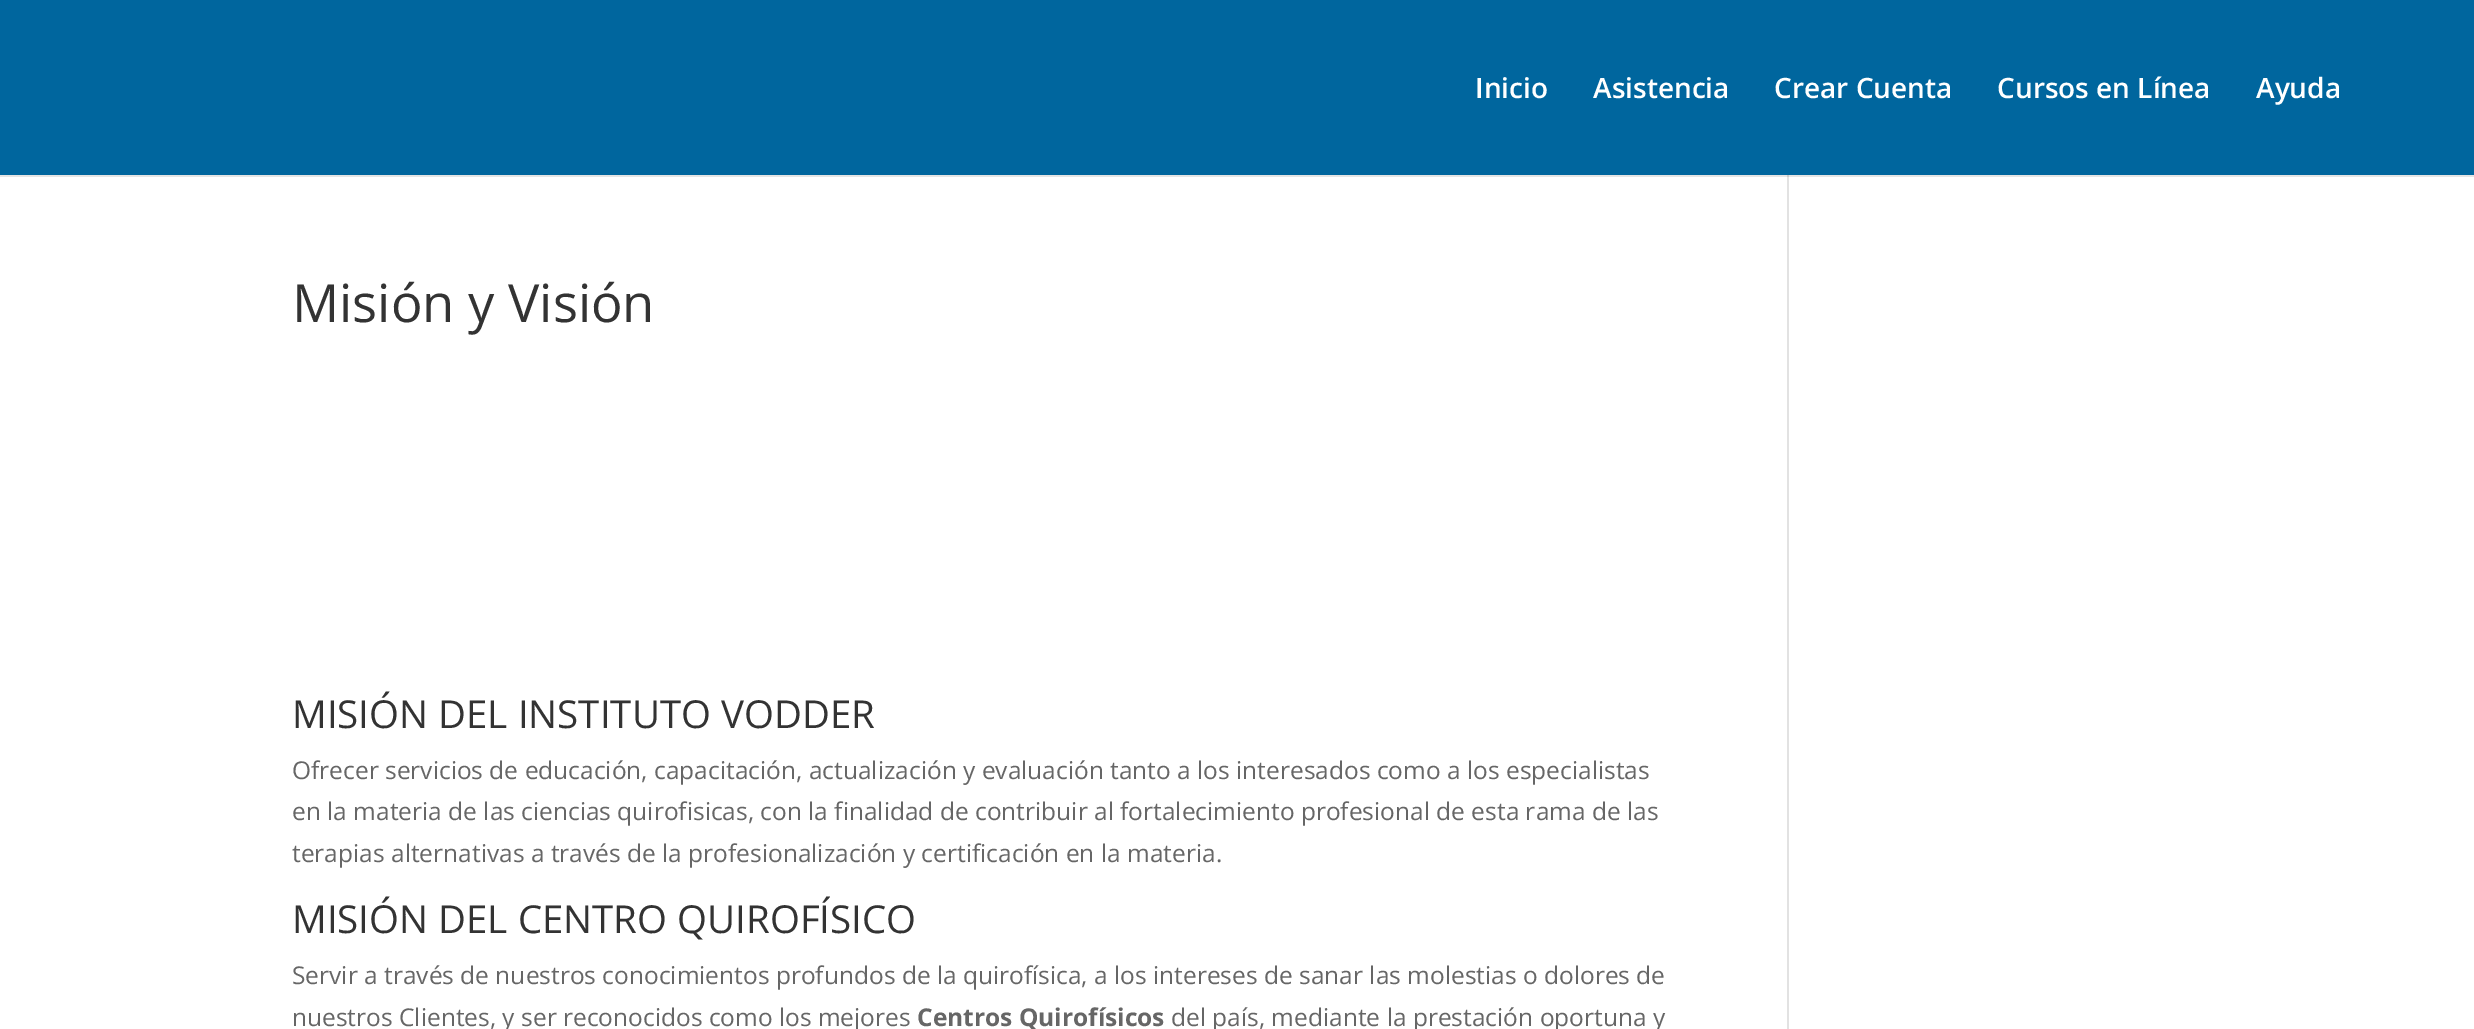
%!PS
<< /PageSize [2474 1029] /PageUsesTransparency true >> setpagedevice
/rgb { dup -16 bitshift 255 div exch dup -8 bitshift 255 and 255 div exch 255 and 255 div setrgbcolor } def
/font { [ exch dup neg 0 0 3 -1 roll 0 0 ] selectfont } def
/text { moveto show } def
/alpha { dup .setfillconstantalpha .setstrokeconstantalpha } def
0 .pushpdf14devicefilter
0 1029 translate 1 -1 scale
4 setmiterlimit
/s1 { /OpenSans-SemiBold 28 font 16#FFFFFF rgb } def
/s2 { /OpenSans-Regular 52.5 font 16#333333 rgb } def
/s3 { /OpenSans-Regular 38.5 font 16#333333 rgb } def
/s4 { /OpenSans-Regular 24.5 font 16#666666 rgb } def
/s5 { /OpenSans-Bold 24.5 font 16#666666 rgb } def
16#FFFFFF rgb
0 0 2474 1029 rectfill
16#E2E2E2 rgb
1787 175 2 854 rectfill
0.1 alpha
16#000000 rgb
0 175 moveto 0 177 lineto 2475 177 lineto 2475 2 lineto 2474 2 lineto 2474 175 lineto closepath fill
1 alpha
16#00669E rgb
0 0 2474 175 rectfill
s1
(Inicio) 1475 98 text
(Asistencia) 1593 98 text
(Crear Cuenta) 1774 98 text
(Cursos en Línea) 1997 98 text
(Ayuda) 2256 98 text
s2
(Misión y Visión) 292 322 text
s3
(MISIÓN DEL INSTITUTO VODDER) 292 728 text
s4
(Ofrecer servicios de educación, capacitación, actualización y evaluación tanto a los interesados como a los especialistas) 292 779 text
(en la materia de las ciencias quirofisicas, con la finalidad de contribuir al fortalecimiento profesional de esta rama de las) 292 820 text
(terapias alternativas a través de la profesionalización y certificación en la materia.) 292 862 text
s3
(MISIÓN DEL CENTRO QUIROFÍSICO) 292 933 text
s4
(Servir a través de nuestros conocimientos profundos de la quirofísica, a los intereses de sanar las molestias o dolores de) 292 984 text
(nuestros Clientes, y ser reconocidos como los mejores) 292 1026 text
s5
(Centros Quirofísicos) 917 1026 text
s4
(del país, mediante la prestación oportuna y) 1171 1026 text
.poppdf14devicefilter showpage
